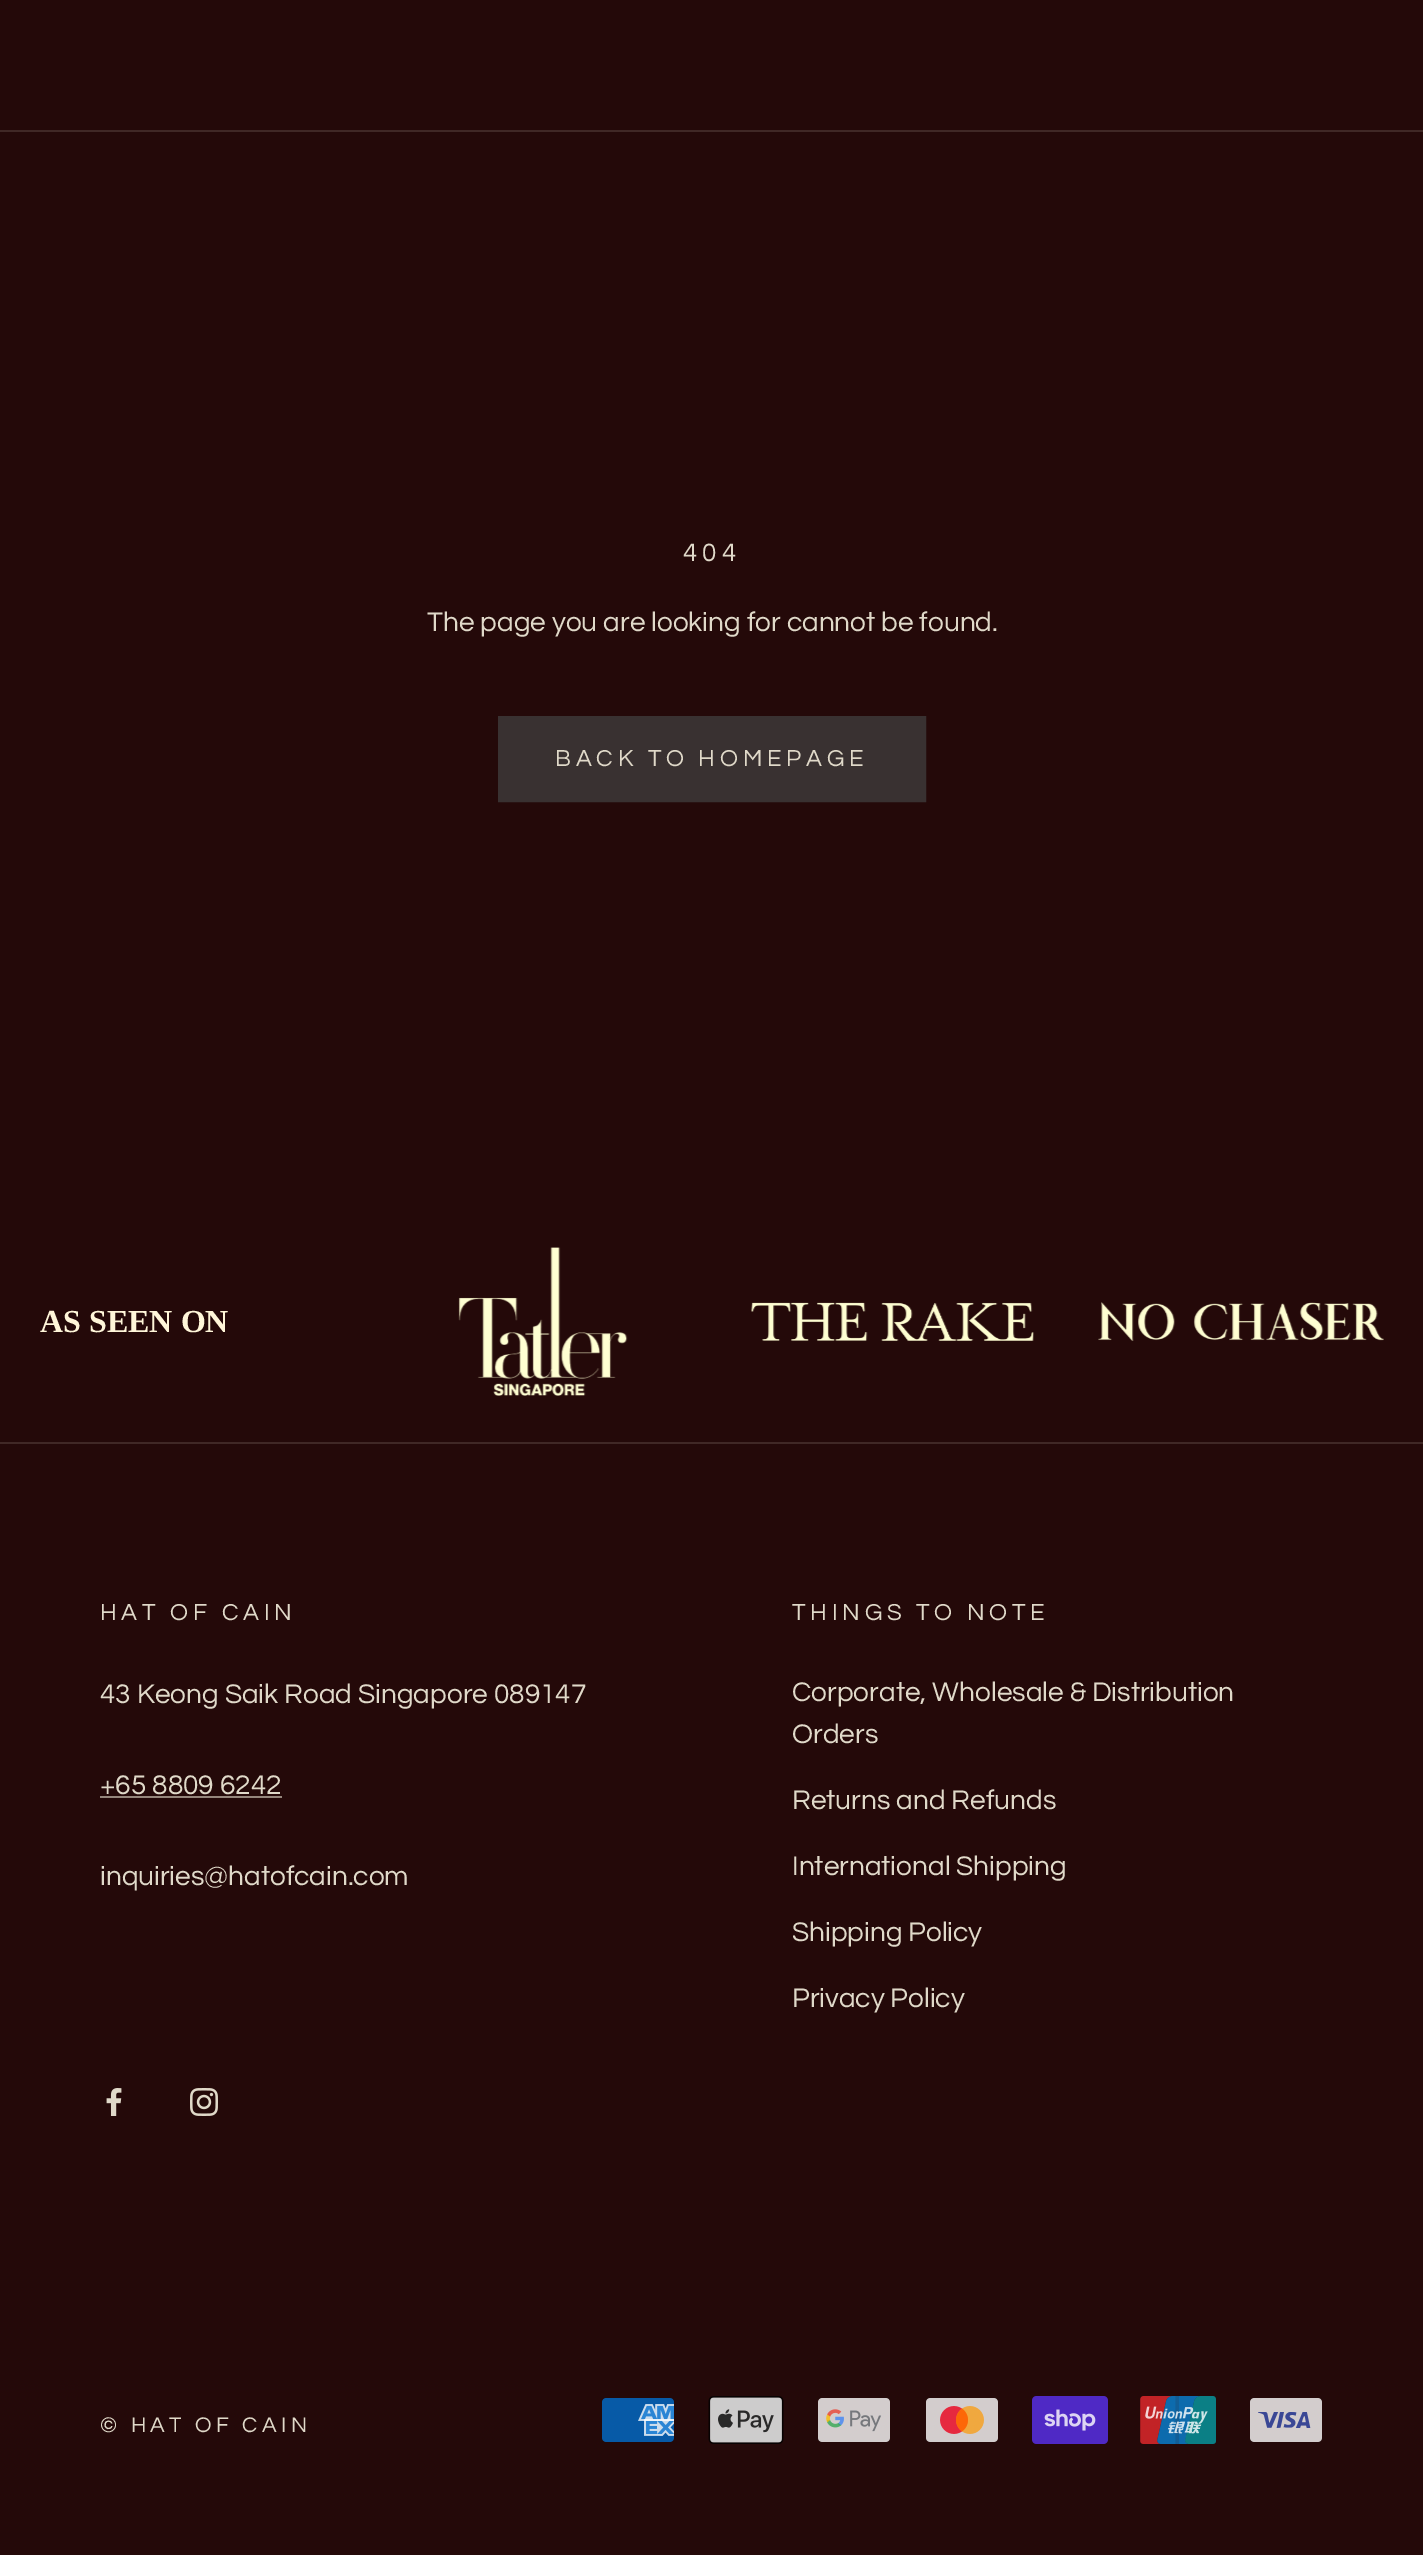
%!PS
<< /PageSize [1423 2555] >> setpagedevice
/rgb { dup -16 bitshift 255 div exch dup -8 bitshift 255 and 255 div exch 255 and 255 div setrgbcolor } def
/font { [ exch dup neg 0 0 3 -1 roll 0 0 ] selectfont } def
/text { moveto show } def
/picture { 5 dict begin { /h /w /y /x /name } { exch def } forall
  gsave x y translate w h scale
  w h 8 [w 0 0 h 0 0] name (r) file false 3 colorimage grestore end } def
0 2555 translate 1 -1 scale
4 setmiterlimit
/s1 { /Questrial-Regular 28 font 16#E0D9C9 rgb } def
/s2 { /LiberationSerif-Bold 32 font 16#FFF6D9 rgb } def
16#240909 rgb
0 0 1423 2555 rectfill
16#402826 rgb
0 130 1423 2 rectfill
/Questrial-Regular 26 font
16#E0D9C9 rgb
683 561 moveto 5 0 (404) ashow
s1
(The page you are looking for cannot be found.) 427 631 text
16#393131 rgb
2 setlinewidth
499 717 426 84 rectstroke
500 718 424 82 rectfill
/Questrial-Regular 24 font
16#E0D9C9 rgb
555 766 moveto 4.75 0 (BACK TO HOMEPAGE) ashow
s2
(AS SEEN ON) 40 1332 text
(pic1.raw) 458 1247 170 149 picture
(pic2.raw) 751 1302 283 39 picture
(pic3.raw) 1098 1302 286 39 picture
16#402826 rgb
0 1442 1423 2 rectfill
/Questrial-Regular 24 font
16#E0D9C9 rgb
100 1620 moveto 4.75 0 (HAT OF CAIN) ashow
s1
(43 Keong Saik Road Singapore 089147) 100 1703 text
(+65 8809 6242) 100 1794 text
16#95867C rgb
100 1796 182 2 rectfill
s1
(inquiries@hatofcain.com) 100 1885 text
(pic4.raw) 106 2088 16 28 picture
(pic5.raw) 190 2088 28 28 picture
/Questrial-Regular 24 font
792 1620 moveto 4.75 0 (THINGS TO NOTE) ashow
s1
(Corporate, Wholesale & Distribution) 792 1701 text
(Orders) 792 1743 text
(Returns and Refunds) 792 1809 text
(International Shipping) 792 1875 text
(Shipping Policy) 792 1941 text
(Privacy Policy) 792 2007 text
/Questrial-Regular 22 font
100 2432 moveto 4.4 0 (© HAT OF CAIN) ashow
(pic6.raw) 602 2398 72 44 picture
(pic7.raw) 708 2396 76 48 picture
(pic8.raw) 818 2398 72 44 picture
(pic9.raw) 926 2398 72 44 picture
(pic10.raw) 1032 2396 76 48 picture
(pic11.raw) 1140 2396 76 48 picture
(pic12.raw) 1250 2398 72 44 picture
showpage
